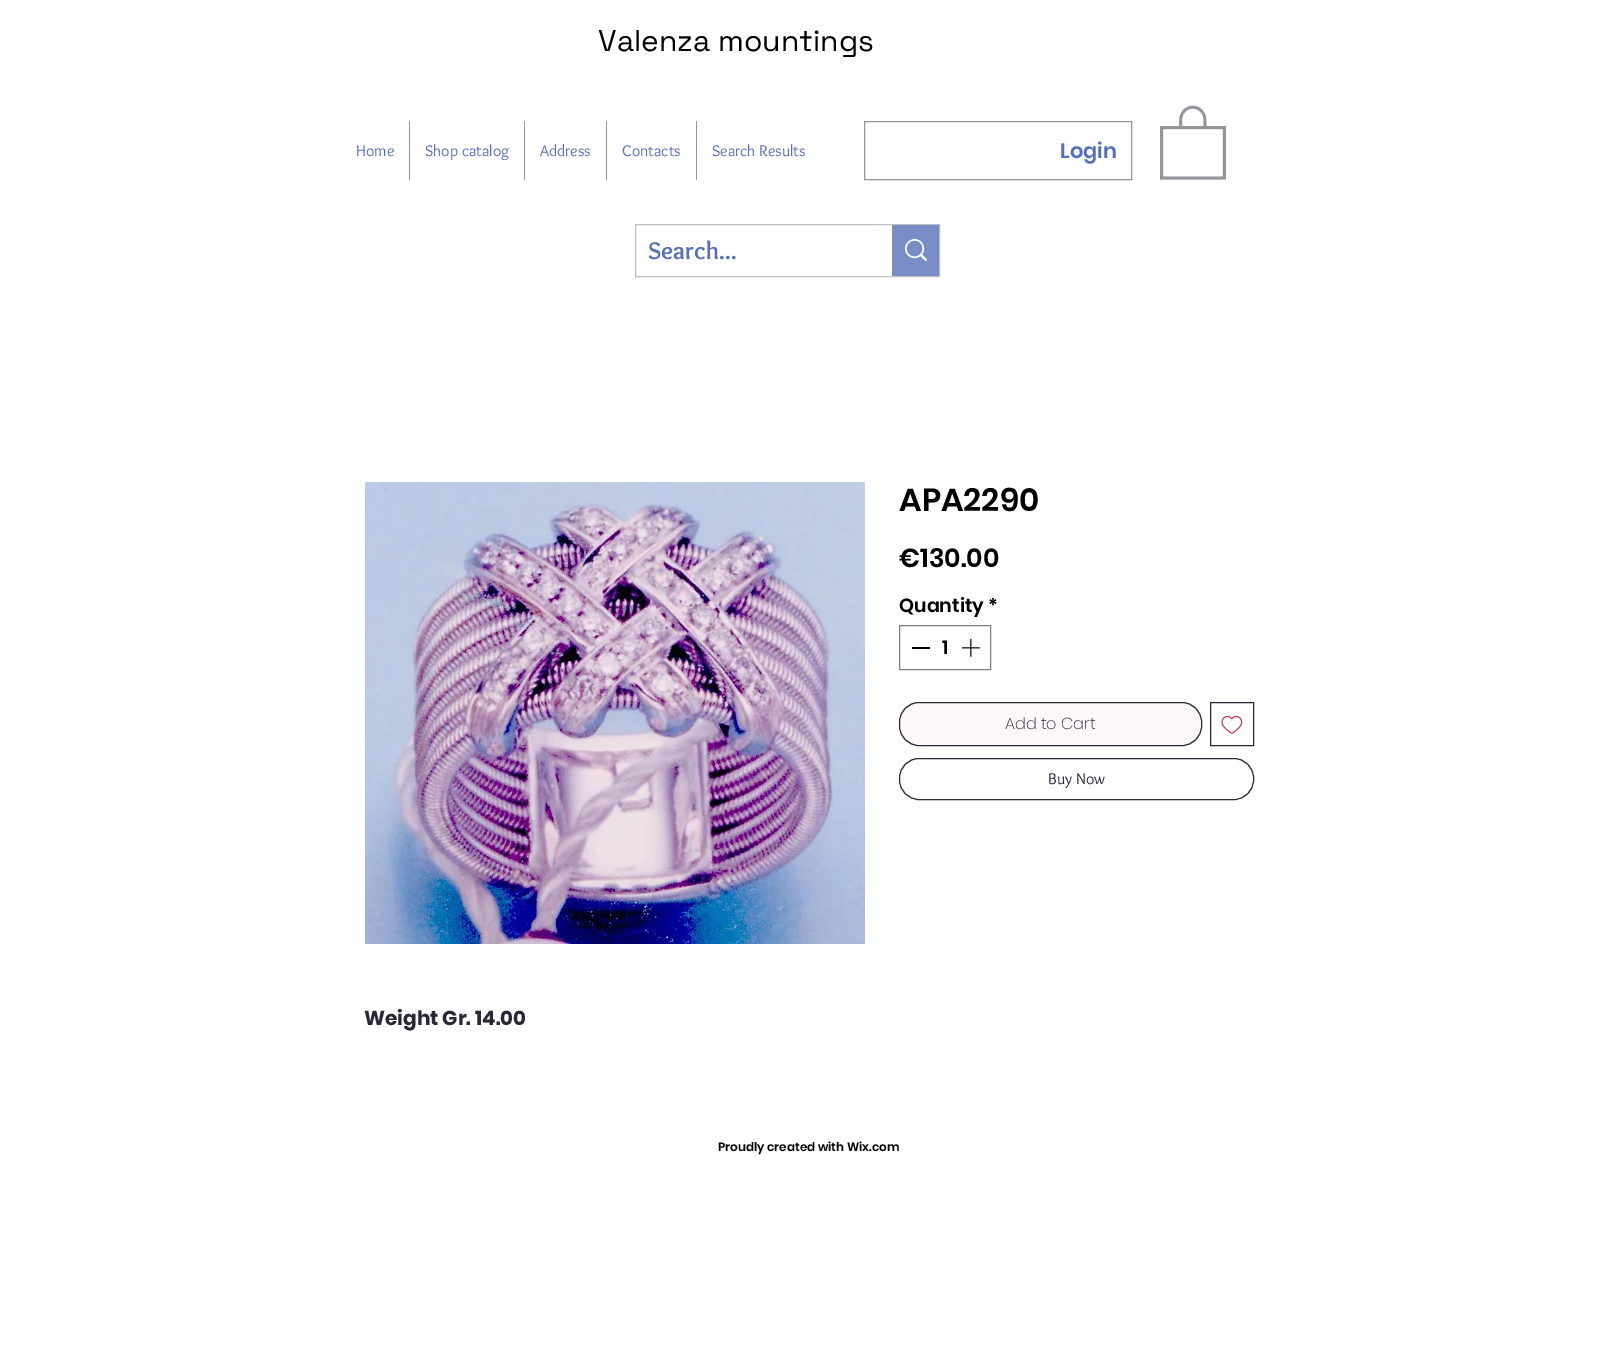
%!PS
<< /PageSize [1618 1346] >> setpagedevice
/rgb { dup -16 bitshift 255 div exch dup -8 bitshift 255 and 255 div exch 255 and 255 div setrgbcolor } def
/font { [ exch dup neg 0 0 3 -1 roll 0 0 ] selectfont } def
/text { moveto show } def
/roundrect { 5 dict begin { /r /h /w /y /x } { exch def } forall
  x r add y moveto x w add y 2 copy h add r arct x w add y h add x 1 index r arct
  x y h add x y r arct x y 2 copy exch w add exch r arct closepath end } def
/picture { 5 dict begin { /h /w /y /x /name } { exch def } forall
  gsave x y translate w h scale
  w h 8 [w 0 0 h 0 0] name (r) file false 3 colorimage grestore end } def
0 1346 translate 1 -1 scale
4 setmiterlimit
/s1 { /SpaceGrotesk-Regular 30 font 16#000000 rgb } def
/s2 { /Overlock-Regular 16 font 16#556FB8 rgb } def
/s3 { /Poppins-SemiBold 21 font 16#556FB8 rgb } def
/s4 { /Overlock-Bold 25 font 16#556FB8 rgb } def
/s5 { /Poppins-SemiBold 32 font 16#000000 rgb } def
/s6 { /Poppins-SemiBold 26 font 16#000000 rgb } def
/s7 { /Poppins-SemiBold 19 font 16#000000 rgb } def
/s8 { /Poppins-ExtraLight 16 font 16#282936 rgb } def
/s9 { /Overlock-Regular 16 font 16#282936 rgb } def
/s10 { /Poppins-Bold 20 font 16#282936 rgb } def
/s11 { /Poppins-SemiBold 12 font 16#000000 rgb } def
16#FFFFFF rgb
0 0 1618 1346 rectfill
s1
(Valenza mountings) 598 51 text
s2
(Home) 356 156 text
16#94949B rgb
409 121 1 59 rectfill
s2
(Shop catalog) 425 156 text
16#94949B rgb
524 121 1 59 rectfill
s2
(Address) 540 156 text
16#94949B rgb
606 121 1 59 rectfill
s2
(Contacts) 622 156 text
16#94949B rgb
696 121 1 59 rectfill
s2
(Search Results) 712 156 text
16#94949B rgb
864.5 121.5 267 58 rectstroke
s3
(Login) 1060 158 text
(pic1.raw) 1160 105 66 75 picture
16#BFBFC3 rgb
635.5 224.5 304 52 rectstroke
s4
(Search...) 648 259 text
16#788CC6 rgb
893 225 46 51 rectfill
16#8991AC rgb
892 225 1 51 rectfill
(pic2.raw) 905 239 22 22 picture
s5
(APA2290) 899 511 text
s6
(€130.00) 899 567 text
s7
(Quantity *) 899 612 text
16#7E7F86 rgb
899.5 625.5 91 44 rectstroke
16#000000 rgb
912 647 18 2 rectfill
(1) 942 654 text
(pic3.raw) 961 638 19 19 picture
16#FDF9FA rgb
899.5 702.5 302 43 19.5 roundrect gsave fill grestore
16#282936 rgb
stroke
s8
(Add to Cart) 1005 729 text
1210.5 702.5 43 43 rectstroke
(pic4.raw) 1221 715 22 19 picture
899.5 758.5 354 41 19.5 roundrect stroke
s9
(Buy Now) 1048 784 text
(pic5.raw) 365 482 500 462 picture
s10
(Weight Gr. 14.00) 364 1025 text
s11
(Proudly created with Wix.com) 718 1151 text
showpage
